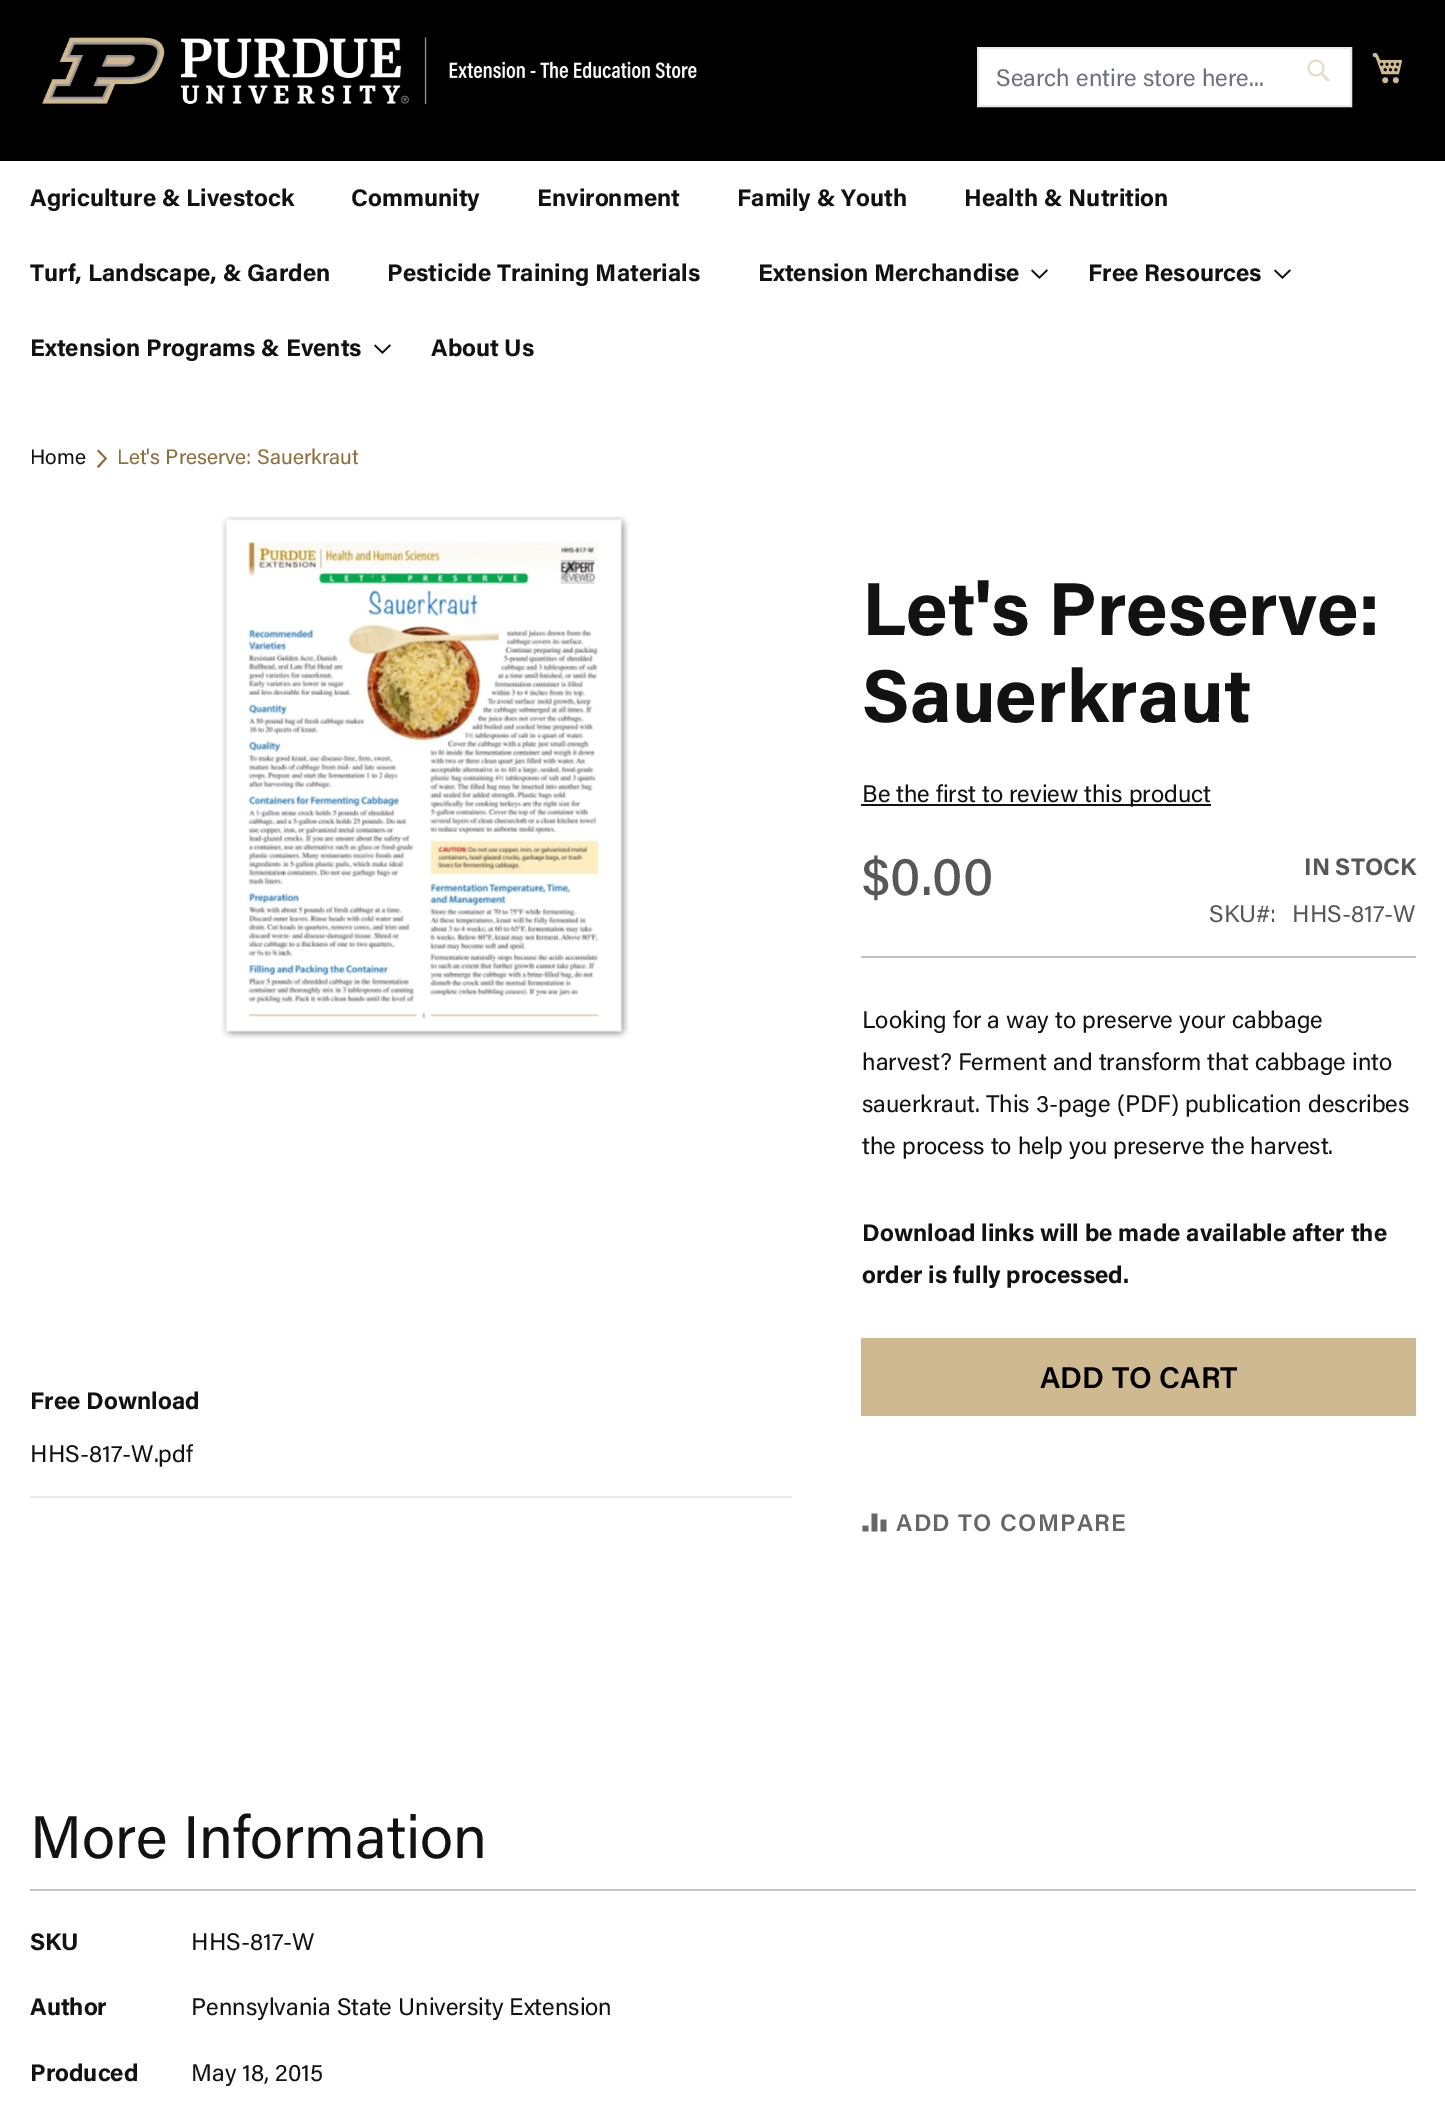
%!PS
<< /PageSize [1445 2122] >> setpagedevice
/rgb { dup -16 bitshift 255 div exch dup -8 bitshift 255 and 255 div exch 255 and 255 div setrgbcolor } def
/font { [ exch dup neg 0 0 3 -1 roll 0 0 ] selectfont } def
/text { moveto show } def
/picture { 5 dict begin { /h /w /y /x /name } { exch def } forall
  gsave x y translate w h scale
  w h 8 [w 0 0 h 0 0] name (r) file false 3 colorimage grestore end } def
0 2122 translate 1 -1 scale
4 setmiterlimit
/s1 { /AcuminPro-Regular 24 font 16#6F727B rgb } def
/s2 { /AcuminPro-Bold 24 font 16#121212 rgb } def
/s3 { /AcuminPro-Regular 21 font 16#121212 rgb } def
/s4 { /AcuminPro-Regular 21 font 16#8E6F3E rgb } def
/s5 { /AcuminPro-Bold 75 font 16#121212 rgb } def
/s6 { /AcuminPro-Regular 24 font 16#121212 rgb } def
/s7 { /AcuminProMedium-Medium 54 font 16#575757 rgb } def
/s8 { /AcuminPro-Bold 24 font 16#575757 rgb } def
/s9 { /AcuminPro-Regular 24 font 16#575757 rgb } def
/s10 { /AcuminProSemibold-SemiBold 30 font 16#000000 rgb } def
/s11 { /AcuminPro-Regular 60 font 16#121212 rgb } def
16#FFFFFF rgb
0 0 1445 2122 rectfill
16#000000 rgb
0 0 1445 161 rectfill
(pic1.raw) 42 37 655 67 picture
16#FFFFFF rgb
978 48 moveto 1351 48 lineto 1351 106 lineto 978 106 lineto closepath gsave fill grestore
16#E9E9EB rgb
2 setlinewidth
stroke
s1
(Search entire store here...) 996 86 text
(pic2.raw) 1307 59 23 23 picture
(pic3.raw) 1372 52 31 32 picture
s2
(Agriculture & Livestock) 30 206 text
(Community) 351 206 text
(Environment) 537 206 text
(Family & Youth) 737 206 text
(Health & Nutrition) 964 206 text
(Turf, Landscape, & Garden) 30 281 text
(Pesticide Training Materials) 387 281 text
(Extension Merchandise) 758 281 text
(pic4.raw) 1031 269 17 10 picture
(Free Resources) 1088 281 text
(pic4.raw) 1274 269 17 10 picture
(Extension Programs & Events) 30 356 text
(pic4.raw) 374 344 17 10 picture
(About Us) 431 356 text
s3
(Home) 30 464 text
16#8E6F3E rgb
107 458.5 moveto 98.5 449.5 lineto 97 451 lineto 104.5 458.5 lineto 97 466.5 lineto 98.5 468 lineto closepath fill
(Let's Preserve: Sauerkraut) 117 464 text
(pic5.raw) 221 516 408 523 picture
s5
(Let's Preserve:) 862 635 text
(Sauerkraut) 862 722 text
861 804 350 2 rectfill
s6
(Be the first to review this product) 862 802 text
16#C1C1C1 rgb
861 956 555 2 rectfill
s7
($0.00) 862 895 text
s8
(IN STOCK) 1304 875 text
s9
(SKU#:) 1209 922 text
(HHS-817-W) 1292 922 text
s6
(Looking for a way to preserve your cabbage) 862 1028 text
(harvest? Ferment and transform that cabbage into) 862 1070 text
(sauerkraut. This 3-page \(PDF\) publication describes) 862 1112 text
(the process to help you preserve the harvest.) 862 1154 text
s2
(Download links will be made available after the) 862 1241 text
(order is fully processed.) 862 1283 text
(Free Download) 30 1409 text
16#EBEBEB rgb
30 1496 762 2 rectfill
s6
(HHS-817-W.pdf) 30 1462 text
16#CFB991 rgb
861 1338 555 78 rectfill
s10
(ADD TO CART) 1040 1388 text
(pic6.raw) 862 1513 25 19 picture
/AcuminProSemibold-SemiBold 24 font
16#666666 rgb
896 1531 moveto 1.25 0 (ADD TO COMPARE) ashow
16#C6C6C6 rgb
30 1889 1386 2 rectfill
s11
(More Information) 30 1858 text
s2
(SKU) 30 1950 text
s6
(HHS-817-W) 191 1950 text
s2
(Author) 30 2015 text
s6
(Pennsylvania State University Extension) 191 2015 text
s2
(Produced) 30 2081 text
s6
(May 18, 2015) 191 2081 text
showpage
